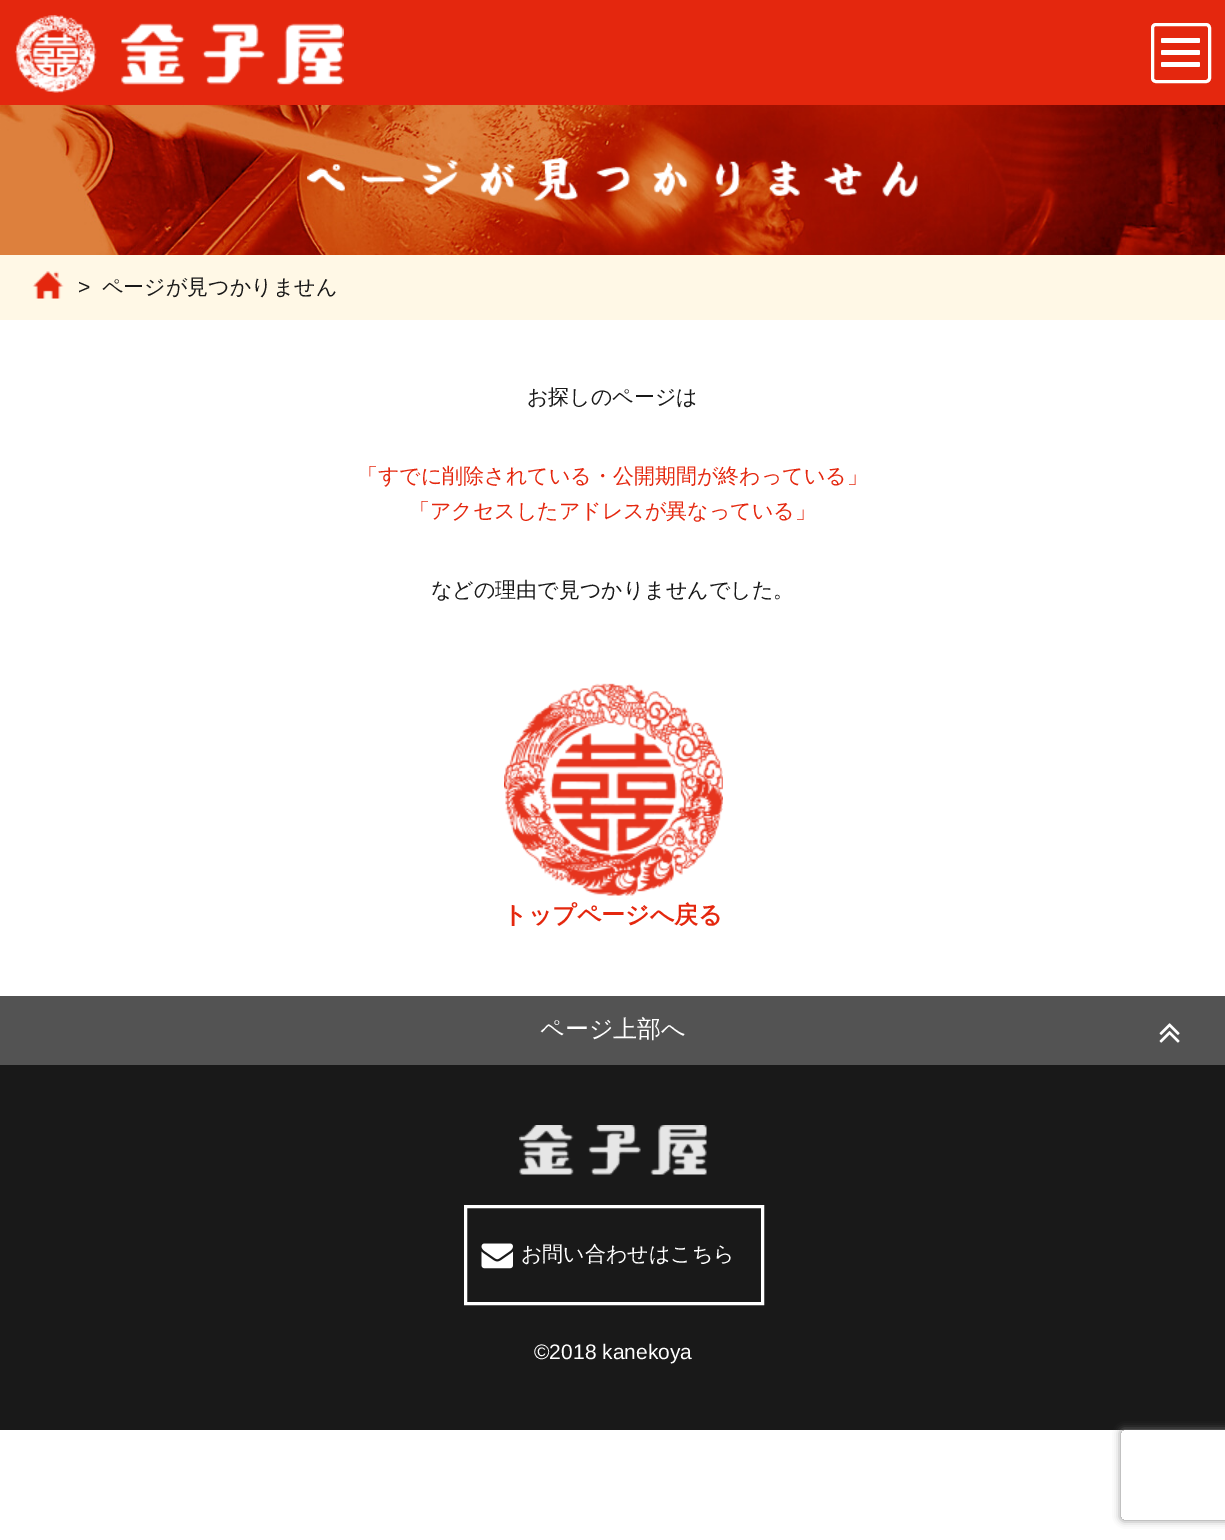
%!PS
<< /PageSize [1225 1540] /PageUsesTransparency true >> setpagedevice
/rgb { dup -16 bitshift 255 div exch dup -8 bitshift 255 and 255 div exch 255 and 255 div setrgbcolor } def
/font { [ exch dup neg 0 0 3 -1 roll 0 0 ] selectfont } def
/text { moveto show } def
/alpha { dup .setfillconstantalpha .setstrokeconstantalpha } def
/roundrect { 5 dict begin { /r /h /w /y /x } { exch def } forall
  x r add y moveto x w add y 2 copy h add r arct x w add y h add x 1 index r arct
  x y h add x y r arct x y 2 copy exch w add exch r arct closepath end } def
/shadow { 12 dict begin { /a /b /q /h /w /y /x } { exch def } forall gsave /was 0 def
  9 -2 -9 { dup b mul 4 div /e exch def 1 sub .425 mul 2.718 exch exp 1 add a .99 .min exch div /now exch def
    1 1 now sub 1 was sub div sub alpha /was now def
    w h .min e 2 mul add 0 gt { x e sub y e sub w e 2 mul add h e 2 mul add
      q e add b .6 mul add w h .min 2 div e add .min 0 .max roundrect fill } if } for grestore end } def
/picture { 5 dict begin { /h /w /y /x /name } { exch def } forall
  gsave x y translate w h scale
  w h 8 [w 0 0 h 0 0] name (r) file false 3 colorimage grestore end } def
0 .pushpdf14devicefilter
0 1540 translate 1 -1 scale
4 setmiterlimit
/s1 { /LiberationSans-Regular 21 font 16#191919 rgb } def
/s2 { /WenQuanYiZenHei-Medium 21 font 16#191919 rgb } def
/s3 { /WenQuanYiZenHei-Medium 21 font 16#E4270E rgb } def
/s4 { /WenQuanYiZenHei-Bold 24 font 16#E4270E rgb } def
/s5 { /WenQuanYiZenHei-Medium 24 font 16#FFFFFF rgb } def
/s6 { /WenQuanYiZenHei-Medium 21 font 16#FFFFFF rgb } def
/s7 { /LiberationSans-Regular 21 font 16#FFFFFF rgb } def
16#FFFFFF rgb
0 0 1225 1540 rectfill
16#E4270E rgb
0 0 1225 105 rectfill
(pic1.raw) 15 15 329 78 picture
16#FFFFFF rgb
3 setlinewidth
1152.5 24.5 57 57 3.5 roundrect stroke
1161 38 39 5 1.5 roundrect fill
1161 50 39 5 1.5 roundrect fill
1161 62 39 5 1.5 roundrect fill
(pic2.raw) 0 105 1225 150 picture
(pic3.raw) 307 157 611 45 picture
16#FFF8E6 rgb
0 255 1225 65 rectfill
(pic4.raw) 32 271 32 28 picture
s1
(>) 78 294 text
s2
(ページが見つかりません) 102 294 text
(お探しのページは) 527 404 text
s3
(「すでに削除されている・公開期間が終わっている」) 357 483 text
(「アクセスしたアドレスが異なっている」) 409 518 text
s2
(などの理由で見つかりませんでした。) 431 597 text
(pic5.raw) 504 683 219 213 picture
s4
(トップページへ戻る) 503 923 text
16#535353 rgb
0 996 1225 69 rectfill
s5
(ページ上部へ) 540 1037 text
(pic6.raw) 1159 1023 21 20 picture
16#191919 rgb
0 1065 1225 365 rectfill
(pic7.raw) 519 1125 188 50 picture
16#FFFFFF rgb
465.5 1206.5 297 97 rectstroke
(pic8.raw) 481 1243 32 26 picture
s6
(お問い合わせはこちら) 521 1261 text
s7
(©2018 kanekoya) 534 1359 text
gsave
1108 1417 moveto 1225 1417 lineto 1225 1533 lineto 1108 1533 lineto closepath 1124 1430 moveto 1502 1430 lineto 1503.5 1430 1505 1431.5 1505 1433 curveto 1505 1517 lineto 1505 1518.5 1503.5 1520 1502 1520 curveto 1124 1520 lineto 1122.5 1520 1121 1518.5 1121 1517 curveto 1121 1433 lineto 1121 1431.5 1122.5 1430 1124 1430 curveto closepath eoclip newpath
16#808080 rgb
1121 1430 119 90 3 4 1 shadow
grestore
.poppdf14devicefilter showpage
